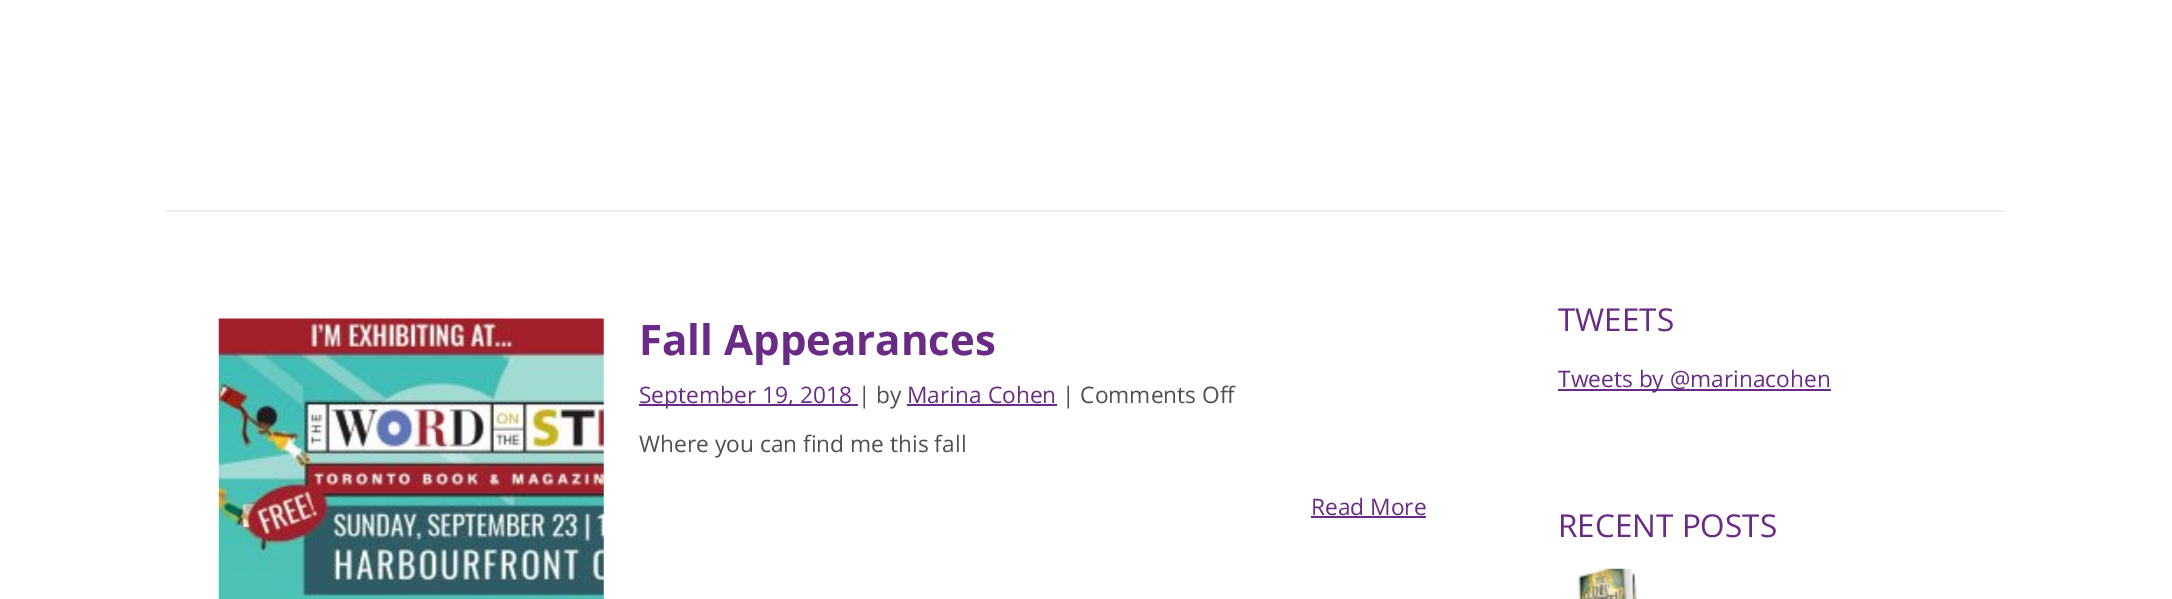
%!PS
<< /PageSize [2172 599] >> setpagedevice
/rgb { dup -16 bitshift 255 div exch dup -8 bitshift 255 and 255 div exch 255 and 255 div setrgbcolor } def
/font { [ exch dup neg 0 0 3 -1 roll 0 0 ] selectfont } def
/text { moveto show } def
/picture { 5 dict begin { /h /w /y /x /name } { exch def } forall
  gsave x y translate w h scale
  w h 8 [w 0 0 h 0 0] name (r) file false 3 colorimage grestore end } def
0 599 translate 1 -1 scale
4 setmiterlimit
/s1 { /OpenSans-Bold 42 font 16#692B85 rgb } def
/s2 { /OpenSans-Regular 22.75 font 16#692B85 rgb } def
/s3 { /OpenSans-Regular 22.75 font 16#4F4F4F rgb } def
/s4 { /OpenSans-Regular 31.5 font 16#692B85 rgb } def
16#FFFFFF rgb
0 0 2172 599 rectfill
16#EEEEEE rgb
166 210 1838 2 rectfill
(pic1.raw) 218 318 386 281 picture
s1
(Fall Appearances) 639 355 text
639 404 219 2 rectfill
s2
(September 19, 2018) 639 403 text
s3
(| by) 858 403 text
s2
(Marina Cohen) 907 403 text
907 404 150 2 rectfill
s3
(| Comments Off) 1062 403 text
(Where you can find me this fall) 639 452 text
s2
(Read More) 1311 515 text
1311 516 115 2 rectfill
s4
(TWEETS) 1558 331 text
1558 389 273 2 rectfill
s2
(Tweets by @marinacohen) 1558 387 text
s4
(RECENT POSTS) 1558 537 text
(pic2.raw) 1578 568 59 31 picture
showpage
